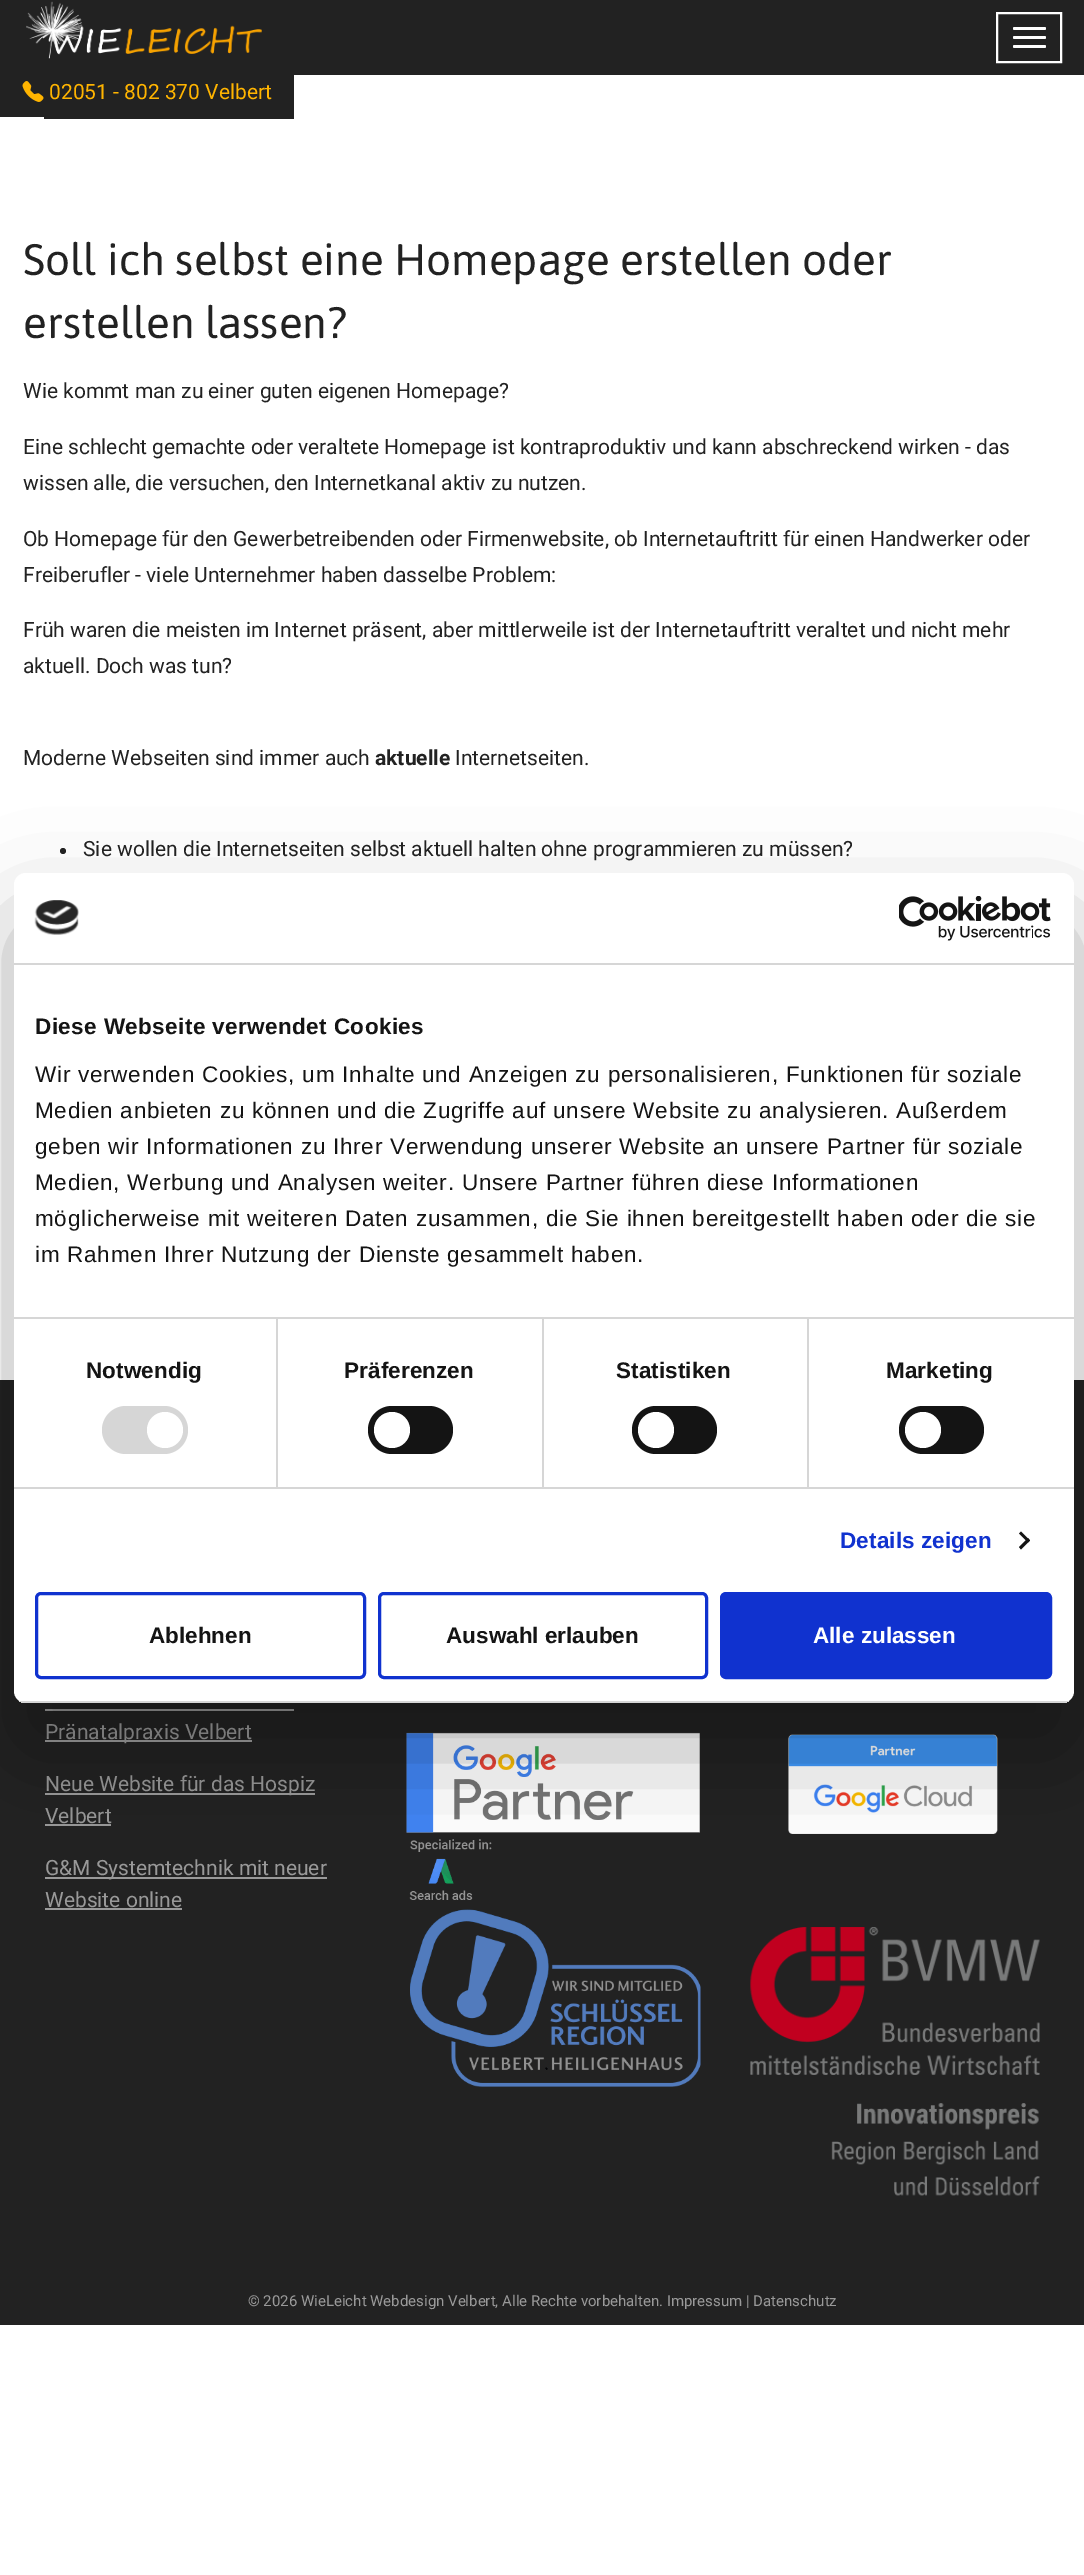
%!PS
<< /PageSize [1084 2575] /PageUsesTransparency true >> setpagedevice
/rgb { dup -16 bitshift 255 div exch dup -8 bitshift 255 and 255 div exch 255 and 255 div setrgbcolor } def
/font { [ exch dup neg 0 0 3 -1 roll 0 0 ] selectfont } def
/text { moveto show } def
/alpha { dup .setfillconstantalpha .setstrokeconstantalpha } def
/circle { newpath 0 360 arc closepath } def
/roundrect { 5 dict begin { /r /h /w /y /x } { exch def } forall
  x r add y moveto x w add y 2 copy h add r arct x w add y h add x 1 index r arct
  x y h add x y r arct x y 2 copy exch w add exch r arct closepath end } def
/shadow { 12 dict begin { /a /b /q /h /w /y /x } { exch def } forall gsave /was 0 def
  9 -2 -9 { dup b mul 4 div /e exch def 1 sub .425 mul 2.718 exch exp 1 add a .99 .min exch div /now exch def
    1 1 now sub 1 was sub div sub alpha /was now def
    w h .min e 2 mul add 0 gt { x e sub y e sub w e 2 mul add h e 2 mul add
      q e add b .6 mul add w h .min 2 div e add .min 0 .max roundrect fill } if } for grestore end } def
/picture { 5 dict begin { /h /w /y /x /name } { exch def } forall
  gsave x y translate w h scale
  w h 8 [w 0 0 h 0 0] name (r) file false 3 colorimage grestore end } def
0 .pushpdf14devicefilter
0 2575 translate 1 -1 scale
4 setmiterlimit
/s1 { /Roboto-Regular 21 font 16#FFB400 rgb } def
/s2 { /Asap-Regular 44.1 font 16#222222 rgb } def
/s3 { /Roboto-Regular 21 font 16#222222 rgb } def
/s4 { /Roboto-Bold 21 font 16#222222 rgb } def
/s5 { /Roboto-Regular 21 font 16#999999 rgb } def
/s6 { /Roboto-Regular 15 font 16#999999 rgb } def
/s7 { /LiberationSans-Bold 22.5 font 16#141414 rgb } def
/s8 { /LiberationSans-Bold 22.5 font 16#FFFFFF rgb } def
16#FFFFFF rgb
0 0 1084 2575 rectfill
16#222222 rgb
0 0 1084 75 rectfill
(pic1.raw) 26 1 236 58 picture
16#FFFFFF rgb
2 setlinewidth
997 13 64 49 rectstroke
1013 27 33 3 1.5 roundrect fill
1013 36 33 3 1.5 roundrect fill
1013 45 33 3 1.5 roundrect fill
16#222222 rgb
0 75 44 42 rectfill
44 75 250 44 rectfill
(pic2.raw) 22 81 22 21 picture
s1
(02051 - 802 370 Velbert) 49 99 text
s2
(Soll ich selbst eine Homepage erstellen oder) 23 275 text
(erstellen lassen?) 23 338 text
s3
(Wie kommt man zu einer guten eigenen Homepage?) 23 398 text
(Eine schlecht gemachte oder veraltete Homepage ist kontraproduktiv und kann abschreckend wirken - das) 23 454 text
(wissen alle, die versuchen, den Internetkanal aktiv zu nutzen.) 23 490 text
(Ob Homepage für den Gewerbetreibenden oder Firmenwebsite, ob Internetauftritt für einen Handwerker oder) 23 546 text
(Freiberufler - viele Unternehmer haben dasselbe Problem:) 23 582 text
(Früh waren die meisten im Internet präsent, aber mittlerweile ist der Internetauftritt veraltet und nicht mehr) 23 637 text
(aktuell. Doch was tun?) 23 673 text
(Moderne Webseiten sind immer auch) 23 765 text
s4
(aktuelle) 375 765 text
s3
(Internetseiten.) 455 765 text
63 851 3 circle fill
(Sie wollen die Internetseiten selbst aktuell halten ohne programmieren zu müssen?) 83 856 text
0 1380 1084 945 rectfill
16#999999 rgb
45 1740 207 2 rectfill
(Pränatalpraxis Velbert) 45 1739 text
45 1709 249 2 rectfill
45 1793 270 2 rectfill
(Neue Website für das Hospiz) 45 1791 text
(Velbert) 45 1823 text
45 1824 66 2 rectfill
45 1877 282 2 rectfill
(G&M Systemtechnik mit neuer) 45 1875 text
(Website online) 45 1907 text
45 1908 137 2 rectfill
(pic3.raw) 406 1732 294 168 picture
(pic4.raw) 788 1734 210 100 picture
(pic5.raw) 410 1909 291 178 picture
(pic6.raw) 750 1927 290 269 picture
s6
(© 2026 WieLeicht Webdesign Velbert, Alle Rechte vorbehalten. Impressum | Datenschutz) 248 2306 text
16#000000 rgb
14 921 1060 830 12 51 0.3 shadow
16#FFFFFF rgb
14 873 1060 830 12 roundrect fill
16#D6D6D6 rgb
14 963 1060 2 rectfill
(pic7.raw) 34 900 45 35 picture
(pic8.raw) 899 896 152 45 picture
14 1317 1060 2 rectfill
/LiberationSans-Bold 22.5 font
16#141414 rgb
35 1034 moveto 0.4 0 (Diese Webseite verwendet Cookies) ashow
/LiberationSans-Regular 22.5 font
35 1082 moveto 0.75 0 (Wir verwenden Cookies, um Inhalte und Anzeigen zu personalisieren, Funktionen für soziale) ashow
35 1118 moveto 0.75 0 (Medien anbieten zu können und die Zugriffe auf unsere Website zu analysieren. Außerdem) ashow
35 1154 moveto 0.75 0 (geben wir Informationen zu Ihrer Verwendung unserer Website an unsere Partner für soziale) ashow
35 1190 moveto 0.75 0 (Medien, Werbung und Analysen weiter. Unsere Partner führen diese Informationen) ashow
35 1226 moveto 0.75 0 (möglicherweise mit weiteren Daten zusammen, die Sie ihnen bereitgestellt haben oder die sie) ashow
35 1262 moveto 0.75 0 (im Rahmen Ihrer Nutzung der Dienste gesammelt haben.) ashow
16#D6D6D6 rgb
14 1487 1060 2 rectfill
276 1319 2 168 rectfill
/LiberationSans-Bold 22.5 font
16#141414 rgb
86 1378 moveto 0.1 0 (Notwendig) ashow
16#D6D6D6 rgb
102 1406 86 48 24 roundrect fill
16#FFFFFF rgb
165 1430 18 circle fill
16#D6D6D6 rgb
542 1319 2 168 rectfill
16#141414 rgb
344 1378 moveto 0.1 0 (Präferenzen) ashow
368 1406 85 48 24 roundrect fill
16#FFFFFF rgb
392 1430 18 circle fill
16#D6D6D6 rgb
807 1319 2 168 rectfill
16#141414 rgb
616 1378 moveto 0.1 0 (Statistiken) ashow
632 1406 85 48 24 roundrect fill
16#FFFFFF rgb
656 1430 18 circle fill
16#141414 rgb
886 1378 moveto 0.1 0 (Marketing) ashow
899 1406 85 48 24 roundrect fill
16#FFFFFF rgb
923 1430 18 circle fill
16#1032CF rgb
840 1548 moveto 0.1 0 (Details zeigen) ashow
16#141414 rgb
1021 1531.5 moveto 1030 1540.5 lineto 1028 1542.5 lineto 1019 1533.5 lineto closepath fill
1028 1538 moveto 1030 1540.5 lineto 1021 1549.5 lineto 1019 1547 lineto closepath fill
gsave
14 873 1060 830 12 roundrect clip newpath
16#D6D6D6 rgb
14 1701 1060 2 rectfill
grestore
16#1032CF rgb
3 setlinewidth
36.5 1593.5 328 84 4.5 roundrect stroke
s7
(Ablehnen) 149 1643 text
16#1032CF rgb
379.5 1593.5 327 84 4.5 roundrect stroke
s7
(Auswahl erlauben) 446 1643 text
16#1032CF rgb
721.5 1593.5 329 84 4.5 roundrect gsave fill grestore
stroke
s8
(Alle zulassen) 813 1643 text
.poppdf14devicefilter showpage
